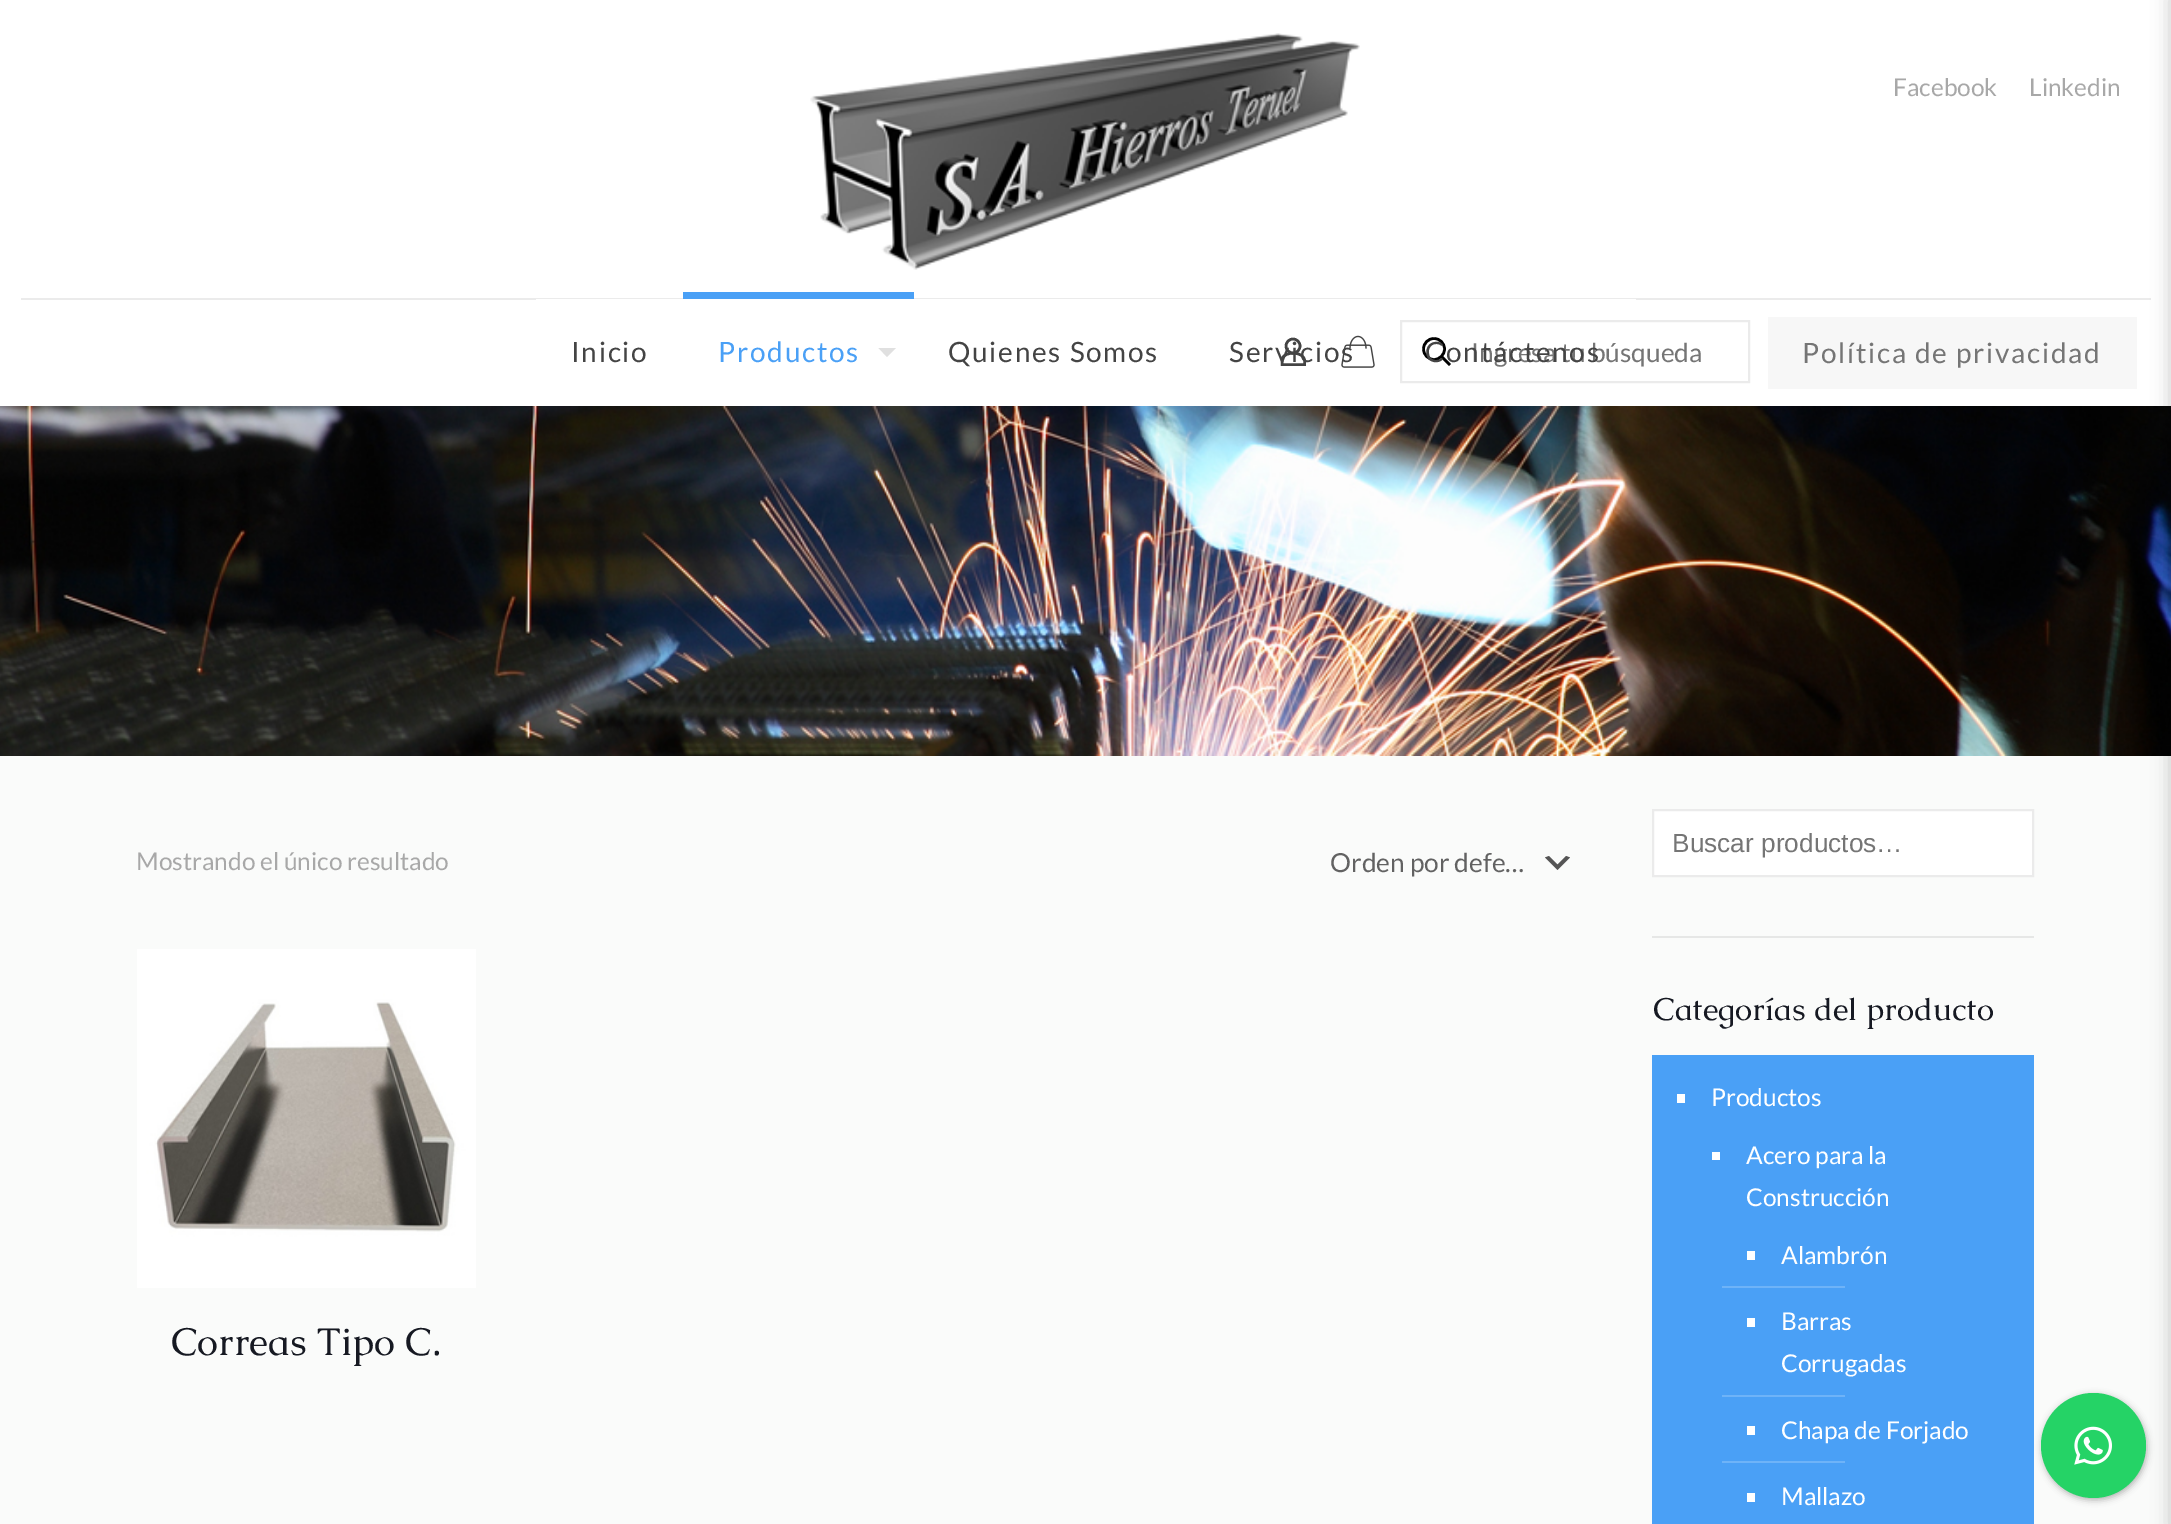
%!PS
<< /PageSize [2171 1524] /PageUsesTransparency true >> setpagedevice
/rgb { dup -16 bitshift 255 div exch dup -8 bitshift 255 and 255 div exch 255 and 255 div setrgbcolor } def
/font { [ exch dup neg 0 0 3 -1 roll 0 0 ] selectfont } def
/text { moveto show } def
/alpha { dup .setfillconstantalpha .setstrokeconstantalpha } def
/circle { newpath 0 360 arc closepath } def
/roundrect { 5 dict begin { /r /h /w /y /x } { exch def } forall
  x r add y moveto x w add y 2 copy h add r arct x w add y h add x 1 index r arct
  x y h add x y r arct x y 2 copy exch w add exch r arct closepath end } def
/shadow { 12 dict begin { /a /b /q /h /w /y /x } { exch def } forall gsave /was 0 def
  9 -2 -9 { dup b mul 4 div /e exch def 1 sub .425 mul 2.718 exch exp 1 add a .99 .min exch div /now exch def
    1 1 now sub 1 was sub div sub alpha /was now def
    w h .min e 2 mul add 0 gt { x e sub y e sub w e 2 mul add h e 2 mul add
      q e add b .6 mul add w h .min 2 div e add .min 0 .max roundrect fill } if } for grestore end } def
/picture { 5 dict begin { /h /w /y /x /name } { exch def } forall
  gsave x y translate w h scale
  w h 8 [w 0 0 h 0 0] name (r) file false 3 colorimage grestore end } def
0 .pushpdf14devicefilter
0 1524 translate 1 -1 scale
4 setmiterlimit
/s1 { /Lato-Regular 24.5 font 16#A8A8A8 rgb } def
/s2 { /Lato-Regular 26.25 font 16#757575 rgb } def
/s3 { /Lato-Regular 26.25 font 16#626262 rgb } def
/s4 { /Caudex-Regular 38.5 font 16#161922 rgb } def
/s5 { /LiberationSans-Regular 26.25 font 16#757575 rgb } def
/s6 { /Caudex-Regular 31.5 font 16#161922 rgb } def
/s7 { /Lato-Regular 24.5 font 16#FFFFFF rgb } def
16#FAFBFA rgb
0 0 2171 1524 rectfill
16#FFFFFF rgb
0 0 2171 406 rectfill
16#EBEBEB rgb
21 298 2130 2 rectfill
(pic1.raw) 810 33 550 237 picture
s1
(Facebook) 1893 96 text
(Linkedin) 2029 96 text
16#FFFFFF rgb
536 299 1100 1 rectfill
/Lato-Regular 28 font
16#444444 rgb
571 362 moveto 1.75 0 (Inicio) ashow
16#4AA0F6 rgb
683 292 231 7 rectfill
718 362 moveto 1.75 0 (Productos) ashow
16#E0E0E0 rgb
878.5 348 moveto 896 348 lineto 887 357 lineto closepath fill
16#444444 rgb
948 362 moveto 1.75 0 (Quienes Somos) ashow
2.6 setlinewidth
1293 346 7 circle stroke
1304.5 360.5 moveto 1304.5 364.5 lineto 1282 364.5 lineto 1282 359 lineto 1284.5 350.5 1304.5 351.5 1304.5 360.5 curveto closepath stroke
(pic2.raw) 1341 335 34 33 picture
1229 362 moveto 1.75 0 (Servicios) ashow
16#EBEBEB rgb
2 setlinewidth
1401 321 348 61 rectstroke
16#000000 rgb
2.6 setlinewidth
1434 349 10.5 circle stroke
1441.5 356.5 moveto 1450 365 lineto stroke
s2
(Ingresa tu búsqueda) 1471 362 text
/Lato-Regular 28 font
16#444444 rgb
1425 362 moveto 1.75 0 (Contáctenos) ashow
16#F7F7F7 rgb
1768 317 369 72 rectfill
16#757575 rgb
1802 363 moveto 1.75 0 (Política de privacidad) ashow
(pic3.raw) 0 406 2171 350 picture
s1
(Mostrando el único resultado) 136 870 text
16#555555 rgb
1549 856 moveto 1557.5 864.5 lineto 1566 856 lineto 1570 857.5 lineto 1557.5 870 lineto 1545 857.5 lineto closepath fill
s3
(Orden por defe…) 1330 872 text
(pic4.raw) 137 949 339 339 picture
s4
(Correas Tipo C.) 171 1355 text
16#FFFFFF rgb
1653 810 moveto 2033 810 lineto 2033 876 lineto 1653 876 lineto closepath gsave fill grestore
16#EBEBEB rgb
2 setlinewidth
stroke
s5
(Buscar productos…) 1672 852 text
16#E6E7E6 rgb
1652 936 382 2 rectfill
s6
(Categorías del producto) 1653 1020 text
16#4AA0F6 rgb
1652 1055 382 469 rectfill
16#FFFFFF rgb
1677 1094 8 9 rectfill
s7
(Productos) 1711 1106 text
1712 1152 8 8 rectfill
(Acero para la) 1746 1164 text
(Construcción) 1746 1206 text
1747 1251 8 9 rectfill
(Alambrón) 1781 1264 text
16#6EB3F8 rgb
1722 1286 123 2 rectfill
16#FFFFFF rgb
1747 1318 8 9 rectfill
(Barras) 1781 1330 text
(Corrugadas) 1781 1372 text
16#6EB3F8 rgb
1722 1395 123 2 rectfill
16#FFFFFF rgb
1747 1426 8 9 rectfill
(Chapa de Forjado) 1781 1439 text
16#6EB3F8 rgb
1722 1461 123 2 rectfill
16#FFFFFF rgb
1747 1493 8 9 rectfill
(Mallazo) 1781 1505 text
16#000000 rgb
2042 1395 105 105 52.5 3.5 0.3 shadow
16#25D366 rgb
2093.5 1445.5 52.5 circle fill
16#000000 rgb
2170 -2 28 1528 0 9 0.2 shadow
(pic5.raw) 2074 1426 38 39 picture
.poppdf14devicefilter showpage
